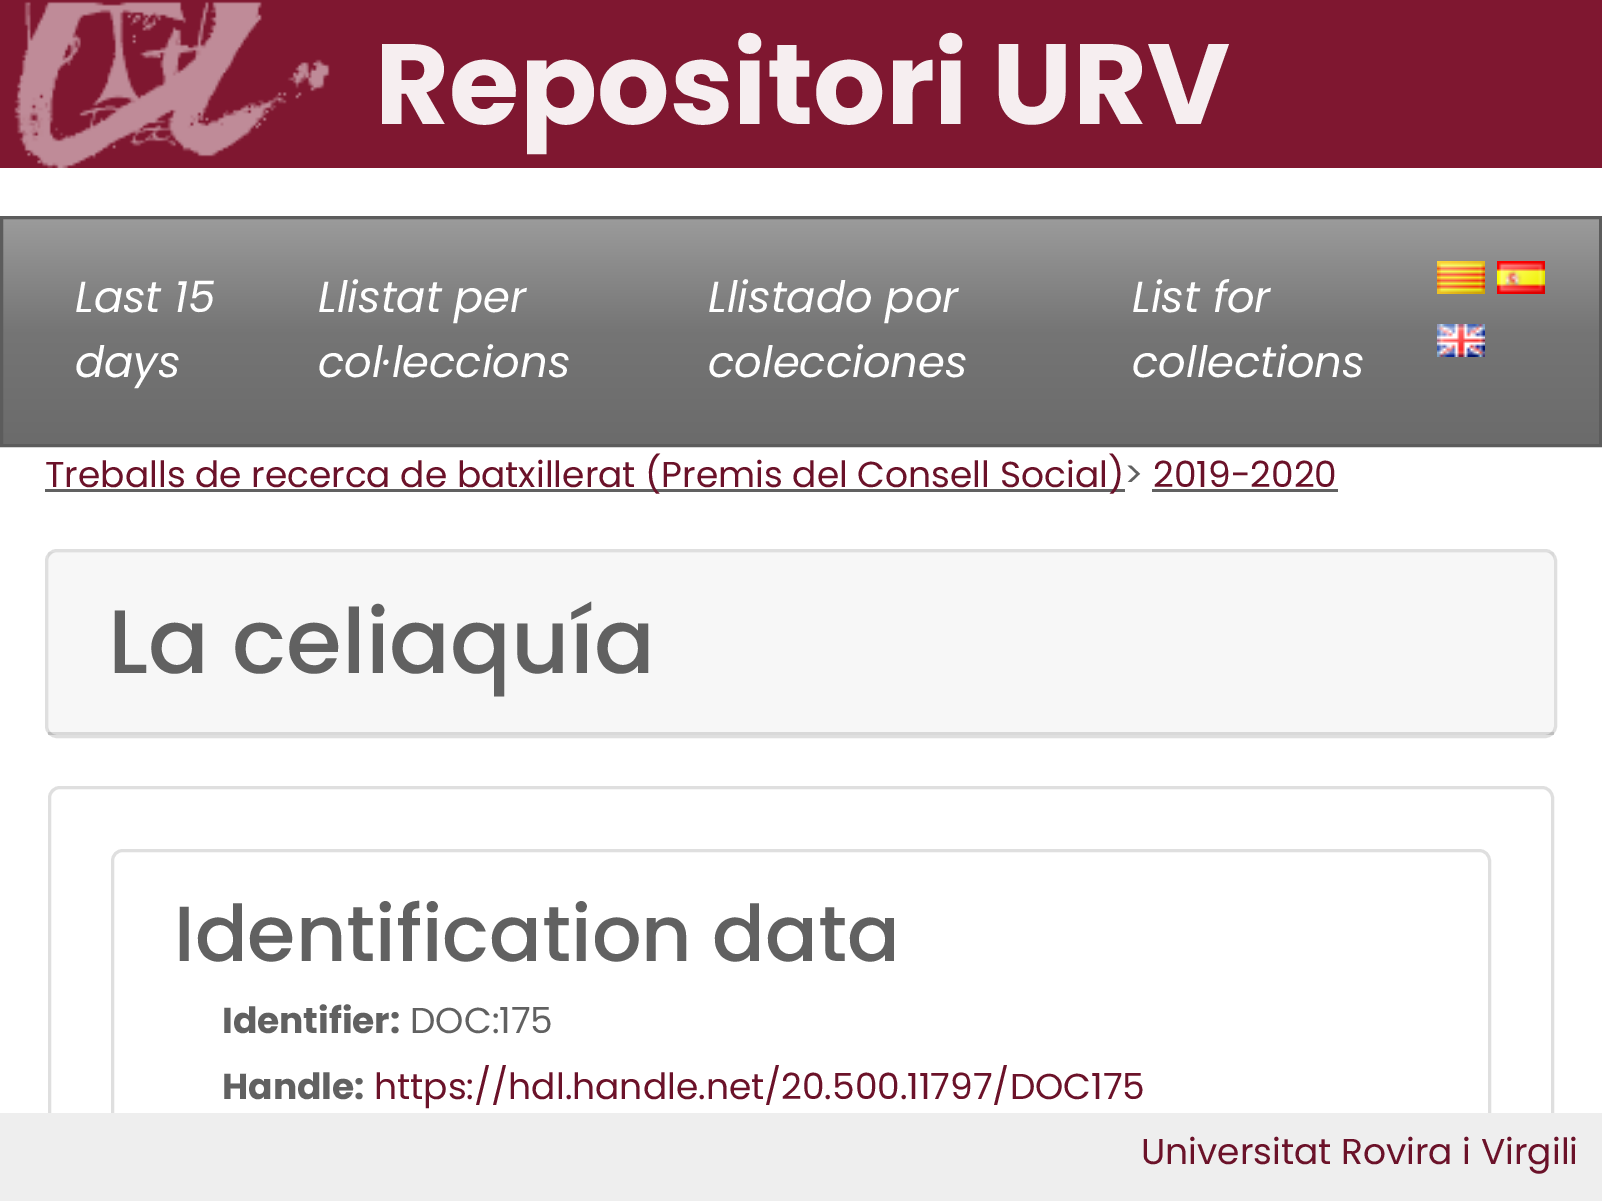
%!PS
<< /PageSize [1602 1201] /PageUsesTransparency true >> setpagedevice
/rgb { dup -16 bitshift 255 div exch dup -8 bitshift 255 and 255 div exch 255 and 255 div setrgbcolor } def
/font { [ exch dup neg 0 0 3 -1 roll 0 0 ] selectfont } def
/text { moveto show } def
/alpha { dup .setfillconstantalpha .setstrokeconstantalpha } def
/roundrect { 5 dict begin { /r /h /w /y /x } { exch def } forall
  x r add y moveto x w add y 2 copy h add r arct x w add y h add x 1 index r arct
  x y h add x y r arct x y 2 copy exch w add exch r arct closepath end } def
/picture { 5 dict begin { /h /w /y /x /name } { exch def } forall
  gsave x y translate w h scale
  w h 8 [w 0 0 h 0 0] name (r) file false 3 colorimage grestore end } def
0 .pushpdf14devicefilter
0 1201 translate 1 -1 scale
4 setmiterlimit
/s1 { /Poppins-Bold 114 font 16#F6EEF0 rgb } def
/s2 { /Poppins-Italic 43.25 font 16#FFFFFF rgb } def
/s3 { /Poppins-Regular 36 font 16#6B1229 rgb } def
/s4 { /Poppins-Regular 36 font 16#616161 rgb } def
/s5 { /Poppins-Medium 90 font 16#616161 rgb } def
/s6 { /Poppins-Medium 78 font 16#616161 rgb } def
/s7 { /Poppins-Bold 36 font 16#616161 rgb } def
16#FFFFFF rgb
0 0 1602 1201 rectfill
16#7F1730 rgb
0 0 1602 168 rectfill
(pic1.raw) 14 1 316 167 picture
s1
(Repositori URV) 375 124 text
gsave 3 219 moveto 1599 219 lineto 1599 444 lineto 3 444 lineto closepath clip newpath
<< /ShadingType 2 /ColorSpace /DeviceRGB /Coords [801 219 801 444] /Extend [true true] /Function << /FunctionType 3 /Domain [0 1] /Functions [<< /FunctionType 2 /Domain [0 1] /C0 [0.608 0.608 0.608] /C1 [0.459 0.459 0.459] /N 1 >> << /FunctionType 2 /Domain [0 1] /C0 [0.459 0.459 0.459] /C1 [0.42 0.42 0.42] /N 1 >>] /Bounds [0.5] /Encode [0 1 0 1] >> >> shfill grestore
16#5C5C5C rgb
3 setlinewidth
1.5 217.5 1599 228 rectstroke
s2
(Last 15) 75 312 text
(days) 75 377 text
(Llistat per) 318 312 text
(col·leccions) 318 377 text
(Llistado por) 708 312 text
(colecciones) 708 377 text
(List for) 1132 312 text
(collections) 1132 377 text
(pic2.raw) 1437 261 48 33 picture
(pic3.raw) 1497 261 48 33 picture
(pic4.raw) 1437 324 48 33 picture
16#616161 rgb
45 489 1080 3 rectfill
s3
(Treballs de recerca de batxillerat \(Premis del Consell Social\)) 45 487 text
s4
(>) 1124 487 text
s3
(2019-2020) 1153 487 text
16#616161 rgb
1152 489 186 3 rectfill
16#DFDFDF rgb
46.5 550.5 1509 186 10.5 roundrect stroke
0.03 alpha
16#000000 rgb
48 552 1506 183 rectfill
0.12 alpha
48 732 1506 3 rectfill
1 alpha
s5
(La celiaquía) 108 673 text
16#DFDFDF rgb
49.5 787.5 1503 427 10.5 roundrect stroke
123 850.5 moveto 1479 850.5 lineto 1485 850.5 1489.5 855 1489.5 861 curveto 1489.5 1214.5 lineto 112.5 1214.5 lineto 112.5 861 lineto 112.5 855 117 850.5 123 850.5 curveto closepath stroke
s6
(Identification data) 174 961 text
s7
(Identifier:) 222 1033 text
s4
(DOC:175) 410 1033 text
s7
(Handle:) 222 1099 text
s3
(https://hdl.handle.net/20.500.11797/DOC175) 374 1099 text
16#EEEEEE rgb
0 1113 1602 88 rectfill
s3
(Universitat Rovira i Virgili) 1141 1164 text
.poppdf14devicefilter showpage
